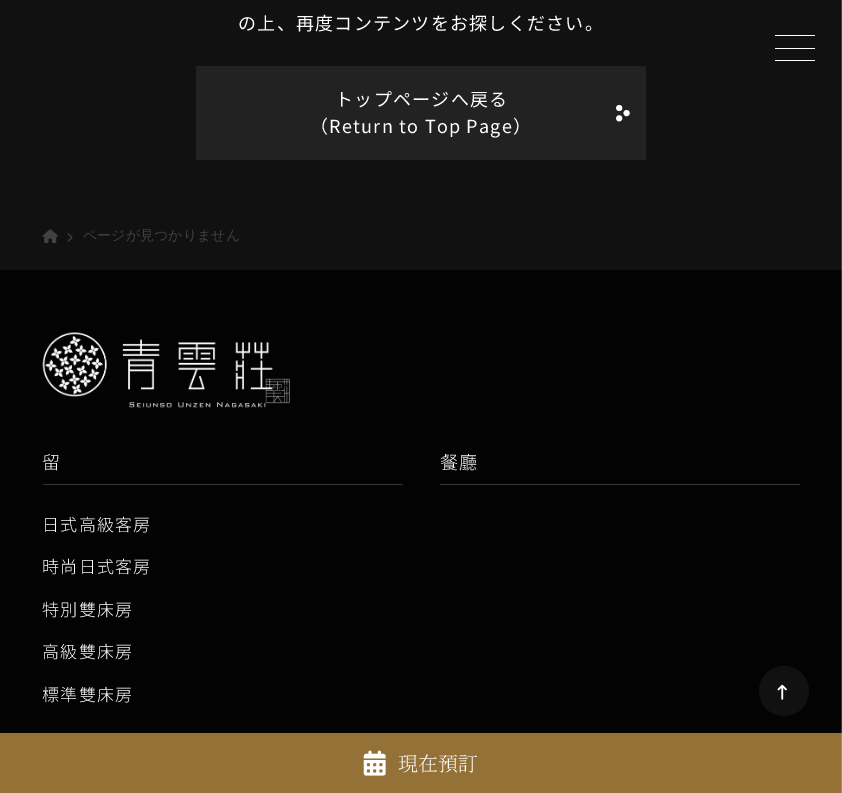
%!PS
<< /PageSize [842 793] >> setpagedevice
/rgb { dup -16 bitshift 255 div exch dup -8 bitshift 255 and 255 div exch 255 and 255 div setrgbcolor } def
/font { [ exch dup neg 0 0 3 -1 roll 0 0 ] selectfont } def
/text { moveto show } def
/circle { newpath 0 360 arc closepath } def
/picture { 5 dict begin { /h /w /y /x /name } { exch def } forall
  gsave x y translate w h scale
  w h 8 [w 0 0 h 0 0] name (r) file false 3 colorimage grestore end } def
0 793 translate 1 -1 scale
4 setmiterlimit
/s1 { /WenQuanYiZenHei-Medium 14 font 16#414141 rgb } def
/s2 { /NotoSerifJP-Light 20 font 16#FFFFFF rgb } def
16#111111 rgb
0 0 842 793 rectfill
16#414141 rgb
841 0 1 270 rectfill
/NotoSansJP-Regular 18 font
16#FFFFFF rgb
238 30 moveto 1.25 0 (の上、再度コンテンツをお探しください。) ashow
16#222222 rgb
196 66 450 94 rectfill
16#FFFFFF rgb
335 106 moveto 1.25 0 (トップページへ戻る) ashow
619.2 108 3 circle fill
619.2 118.3 3 circle fill
626.6 113.1 3 circle fill
310 133 moveto 1.25 0 (（Return to Top Page）) ashow
(pic1.raw) 42 229 16 14 picture
(pic2.raw) 67 233 6 9 picture
s1
(ページが見つかりません) 83 240 text
16#030303 rgb
0 270 841 463 rectfill
16#353535 rgb
841 270 1 463 rectfill
(pic3.raw) 42 332 248 76 picture
43 484 360 1 rectfill
/NotoSansJP-Light 18 font
16#FFFFFF rgb
42 469 moveto 1.25 0 (留) ashow
/NotoSansJP-Light 17 font
42 531 moveto 1.25 0 (日式高級客房) ashow
42 573 moveto 1.25 0 (時尚日式客房) ashow
42 616 moveto 1.25 0 (特別雙床房) ashow
42 658 moveto 1.25 0 (高級雙床房) ashow
42 701 moveto 1.25 0 (標準雙床房) ashow
16#353535 rgb
440 484 360 1 rectfill
/NotoSansJP-Light 18 font
16#FFFFFF rgb
440 469 moveto 1.25 0 (餐廳) ashow
16#111111 rgb
784 691 25 circle fill
(pic4.raw) 777 684 10 16 picture
16#FFFFFF rgb
775 48 40 1 rectfill
775 35 40 1 rectfill
775 60 40 1 rectfill
16#947136 rgb
0 733 841 60 rectfill
16#A98D5E rgb
841 733 1 60 rectfill
(pic5.raw) 363 750 23 26 picture
s2
(現在預訂) 398 771 text
showpage
